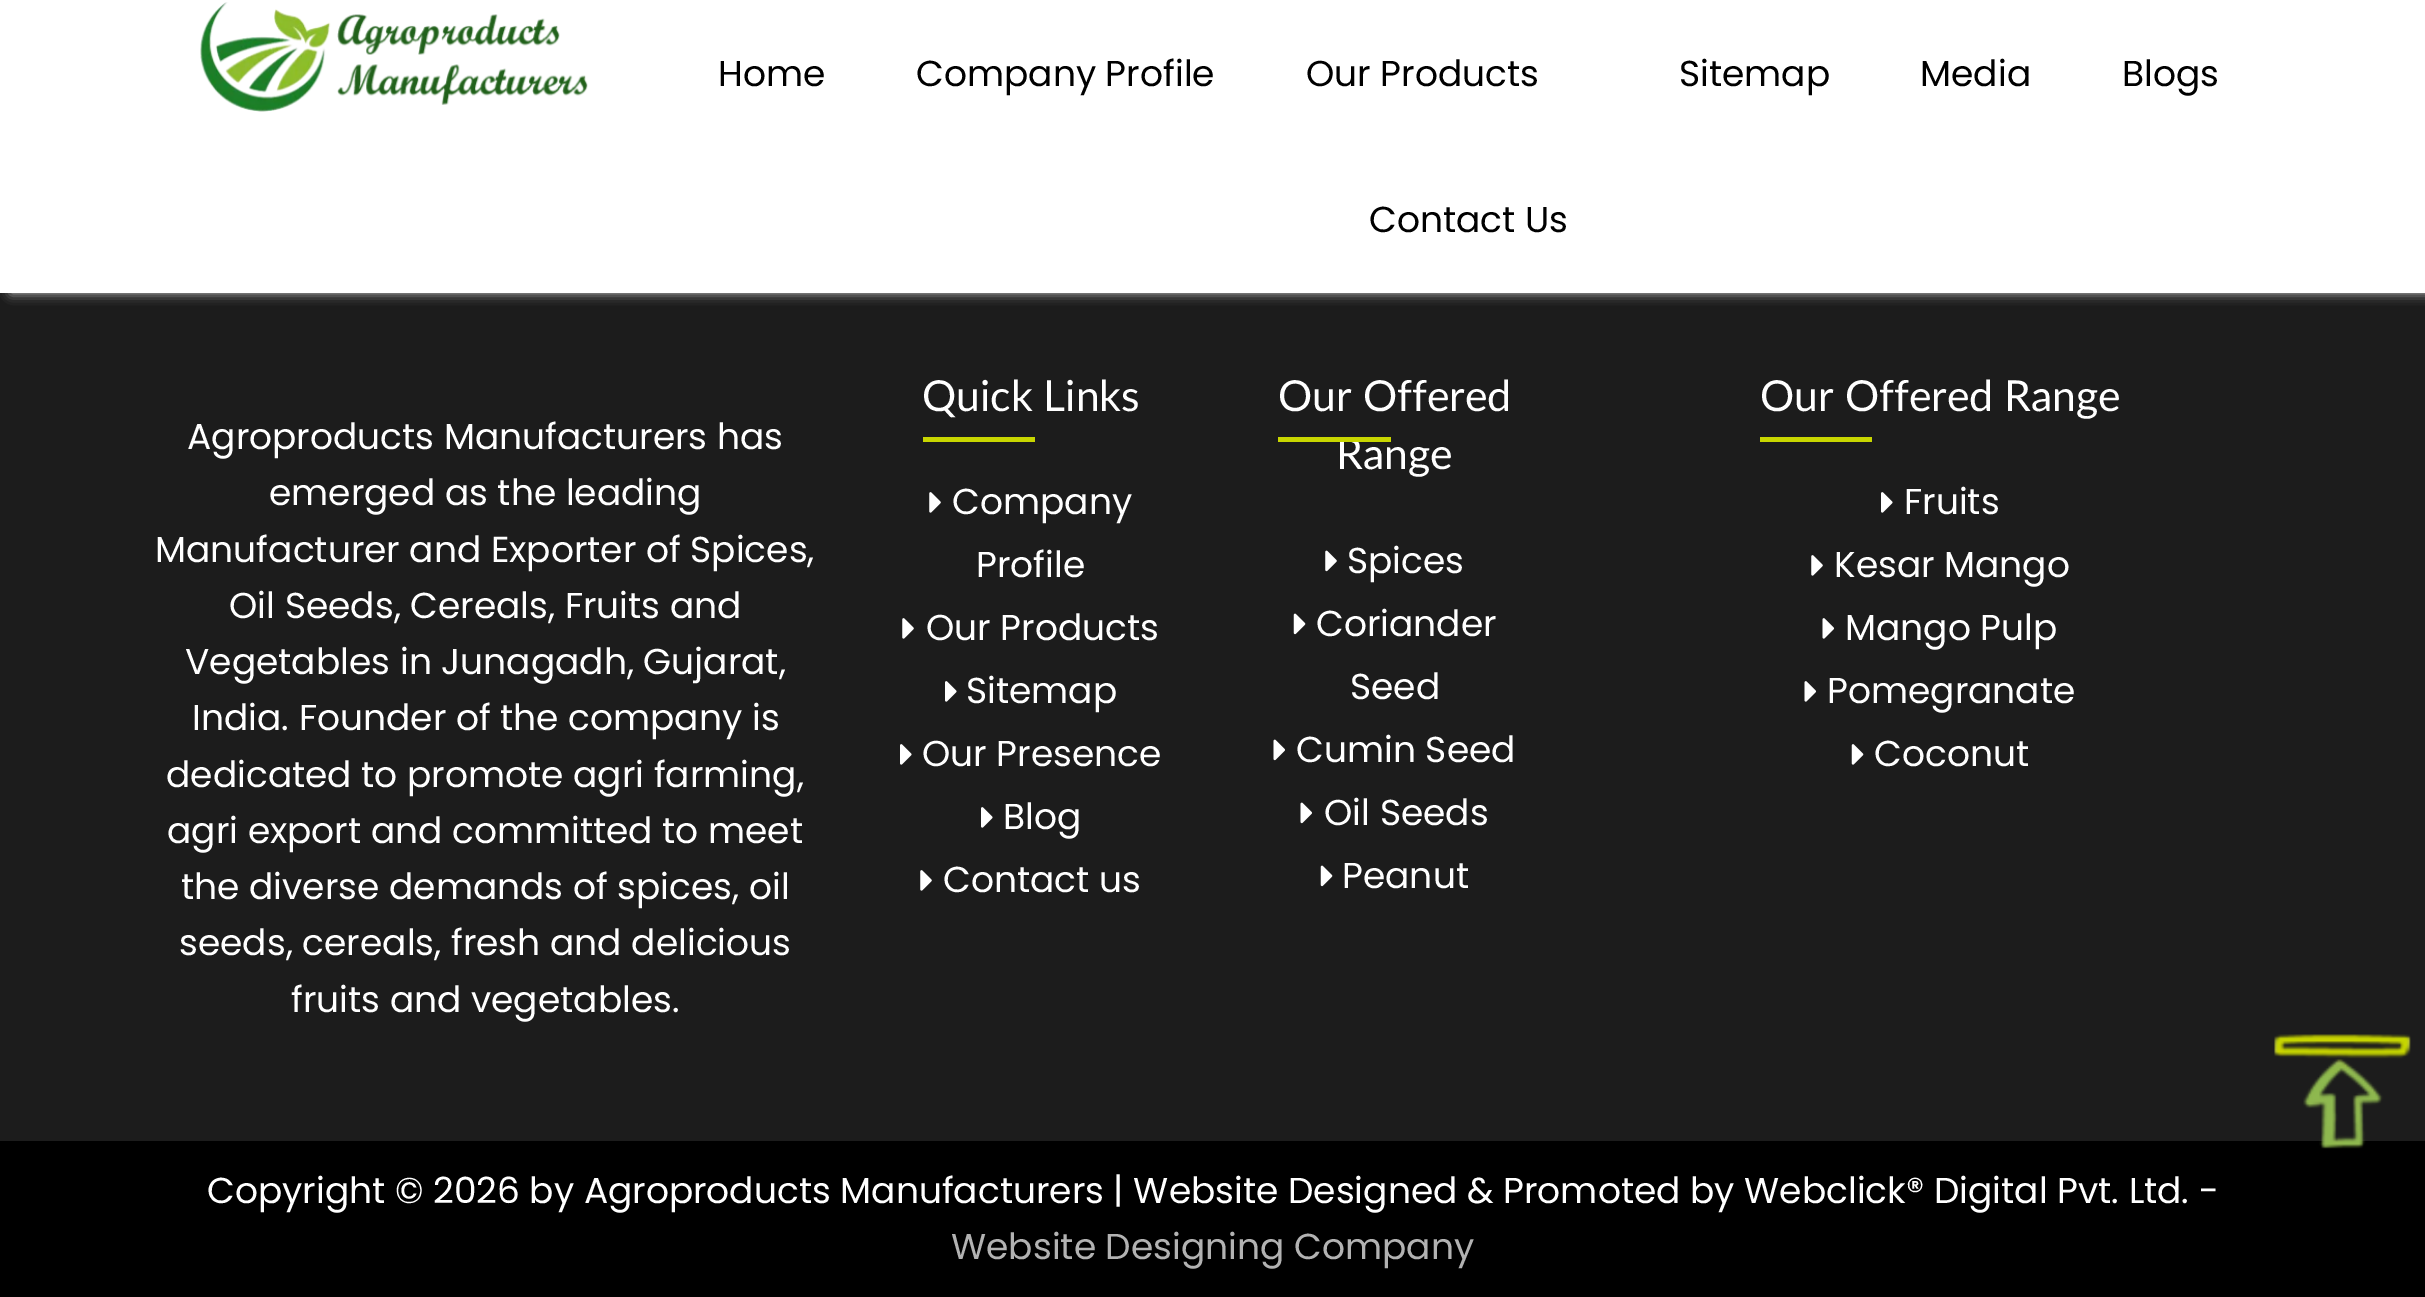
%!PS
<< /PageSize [2425 1297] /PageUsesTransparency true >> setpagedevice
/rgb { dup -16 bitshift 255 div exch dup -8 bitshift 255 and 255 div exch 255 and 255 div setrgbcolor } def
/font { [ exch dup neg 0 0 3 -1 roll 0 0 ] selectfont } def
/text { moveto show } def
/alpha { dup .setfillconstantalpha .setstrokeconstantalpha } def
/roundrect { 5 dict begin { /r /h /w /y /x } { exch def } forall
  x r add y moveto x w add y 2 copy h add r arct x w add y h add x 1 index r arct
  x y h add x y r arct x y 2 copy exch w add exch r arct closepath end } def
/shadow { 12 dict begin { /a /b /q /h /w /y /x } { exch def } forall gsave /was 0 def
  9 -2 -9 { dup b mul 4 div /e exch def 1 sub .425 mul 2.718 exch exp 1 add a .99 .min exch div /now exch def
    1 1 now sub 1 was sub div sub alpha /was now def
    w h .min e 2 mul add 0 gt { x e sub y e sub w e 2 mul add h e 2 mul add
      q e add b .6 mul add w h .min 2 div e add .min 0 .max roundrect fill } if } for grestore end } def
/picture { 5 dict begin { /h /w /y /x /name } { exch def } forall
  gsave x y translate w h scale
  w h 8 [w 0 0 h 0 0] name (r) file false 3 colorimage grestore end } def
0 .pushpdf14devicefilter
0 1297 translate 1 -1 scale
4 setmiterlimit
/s1 { /Poppins-Regular 36 font 16#000000 rgb } def
/s2 { /Poppins-Regular 36 font 16#FFFFFF rgb } def
/s3 { /Lato-Regular 42.75 font 16#FFFFFF rgb } def
/s4 { /Poppins-Regular 36 font 16#B2B2B2 rgb } def
16#1C1C1C rgb
0 0 2425 1297 rectfill
16#CCCCCC rgb
11 0 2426 293 0 5.5 1 shadow
16#FFFFFF rgb
0 0 2425 293 rectfill
(pic1.raw) 200 2 388 110 picture
s1
(Home) 718 86 text
(Company Profile) 916 86 text
(Our Products) 1306 86 text
(Sitemap) 1679 86 text
(Media) 1920 86 text
(Blogs) 2122 86 text
(Contact Us) 1369 232 text
s2
(Agroproducts Manufacturers has) 187 449 text
(emerged as the leading) 269 505 text
(Manufacturer and Exporter of Spices,) 155 562 text
(Oil Seeds, Cereals, Fruits and) 229 618 text
(Vegetables in Junagadh, Gujarat,) 185 674 text
(India. Founder of the company is) 192 730 text
(dedicated to promote agri farming,) 166 787 text
(agri export and committed to meet) 167 843 text
(the diverse demands of spices, oil) 181 899 text
(seeds, cereals, fresh and delicious) 179 955 text
(fruits and vegetables.) 291 1012 text
s3
(Quick Links) 922 411 text
16#C8D600 rgb
923 437 112 5 rectfill
(pic2.raw) 929 492 12 21 picture
s2
(Company) 952 514 text
(Profile) 976 577 text
(pic2.raw) 902 618 12 21 picture
(Our Products) 926 640 text
(pic3.raw) 945 681 12 21 picture
(Sitemap) 966 703 text
(pic3.raw) 900 744 12 21 picture
(Our Presence) 922 766 text
(pic3.raw) 981 807 12 21 picture
(Blog) 1003 829 text
(pic2.raw) 920 870 12 21 picture
(Contact us) 943 892 text
s3
(Our Offered) 1278 411 text
(Range) 1336 469 text
16#C8D600 rgb
1278 437 113 5 rectfill
(pic4.raw) 1325 550 12 22 picture
s2
(Spices) 1347 573 text
(pic5.raw) 1293 613 13 22 picture
(Coriander) 1316 636 text
(Seed) 1350 699 text
(pic6.raw) 1273 739 12 22 picture
(Cumin Seed) 1296 762 text
(pic6.raw) 1300 802 12 22 picture
(Oil Seeds) 1324 825 text
(pic5.raw) 1320 865 13 22 picture
(Peanut) 1342 888 text
s3
(Our Offered Range) 1760 411 text
16#C8D600 rgb
1760 437 112 5 rectfill
(pic3.raw) 1881 492 12 21 picture
s2
(Fruits) 1904 514 text
(pic2.raw) 1811 555 12 21 picture
(Kesar Mango) 1834 577 text
(pic7.raw) 1822 618 13 21 picture
(Mango Pulp) 1845 640 text
(pic7.raw) 1804 681 13 21 picture
(Pomegranate) 1827 703 text
(pic8.raw) 1851 744 13 21 picture
(Coconut) 1874 766 text
16#000000 rgb
0 1141 2425 156 rectfill
s2
(Copyright © 2026 by Agroproducts Manufacturers | Website Designed & Promoted by Webclick® Digital Pvt. Ltd. -) 207 1203 text
s4
(Website Designing Company) 951 1259 text
(pic9.raw) 2274 1034 137 115 picture
.poppdf14devicefilter showpage
